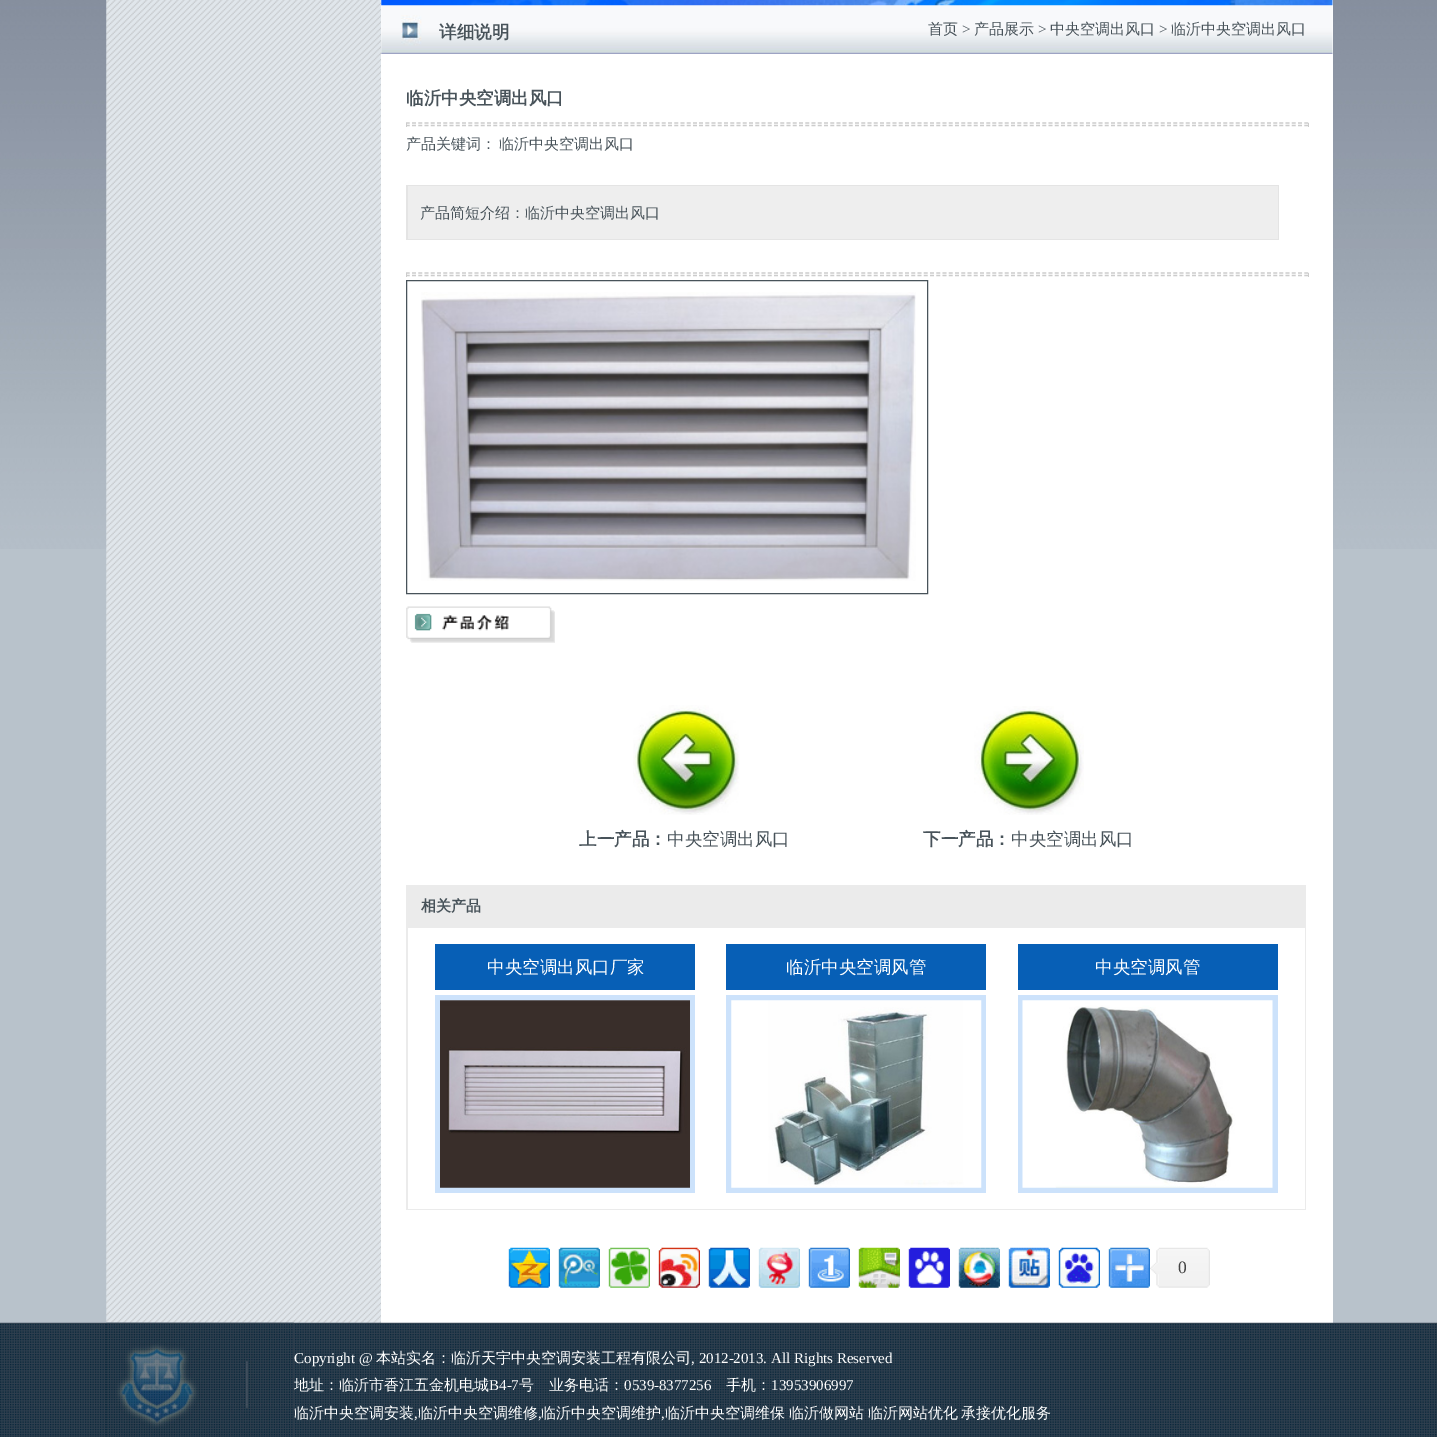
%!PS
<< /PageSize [1437 1437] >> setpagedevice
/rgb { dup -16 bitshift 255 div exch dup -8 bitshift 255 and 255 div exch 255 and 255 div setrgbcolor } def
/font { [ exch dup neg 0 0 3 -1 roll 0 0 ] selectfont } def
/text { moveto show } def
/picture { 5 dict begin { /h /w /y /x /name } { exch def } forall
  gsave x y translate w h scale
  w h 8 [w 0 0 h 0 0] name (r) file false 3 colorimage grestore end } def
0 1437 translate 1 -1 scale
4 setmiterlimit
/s1 { /WenQuanYiZenHei-Bold 17.5 font 16#48535A rgb } def
/s2 { /WenQuanYiZenHei-Medium 15 font 16#48535A rgb } def
/s3 { /LiberationSerif-Regular 15 font 16#48535A rgb } def
/s4 { /WenQuanYiZenHei-Medium 17.5 font 16#48535A rgb } def
/s5 { /WenQuanYiZenHei-Bold 15 font 16#48535A rgb } def
/s6 { /WenQuanYiZenHei-Medium 17.5 font 16#FFFFFF rgb } def
/s7 { /LiberationSerif-Regular 17.5 font 16#454545 rgb } def
/s8 { /WenQuanYiZenHei-Medium 15 font 16#FFFFFF rgb } def
/s9 { /LiberationSerif-Regular 15 font 16#FFFFFF rgb } def
16#B8C2CB rgb
0 0 1437 1437 rectfill
(pic1.raw) 0 0 1437 549 picture
(pic2.raw) 106 0 275 1323 picture
16#FFFFFF rgb
381 0 952 1323 rectfill
(pic4.raw) 381 5 952 49 picture
(pic3.raw) 381 0 952 6 picture
s1
(详细说明) 439 38 text
s2
(首页) 928 34 text
s3
(>) 962 34 text
s2
(产品展示) 974 34 text
s3
(>) 1038 34 text
s2
(中央空调出风口) 1050 34 text
s3
(>) 1159 34 text
s2
(临沂中央空调出风口) 1171 34 text
s1
(临沂中央空调出风口) 406 104 text
16#CCCCCC rgb
1.2 setlinewidth
[3.75 2.49] 0 setdash
406 123 moveto 1309 123 lineto stroke
1308 123 1 4 rectfill
406 125.5 moveto 1309 125.5 lineto stroke
406 123 1 4 rectfill
/WenQuanYiZenHei-Medium 15 font
16#48535A rgb
406 149 moveto -1 0 32 (产品关键词： 临沂中央空调出风口) widthshow
16#E4E4E4 rgb
406 185 873 55 rectfill
16#EEEEEE rgb
408 186 870 53 rectfill
s2
(产品简短介绍：临沂中央空调出风口) 420 218 text
16#CCCCCC rgb
406 273 moveto 1309 273 lineto stroke
1308 273 1 4 rectfill
406 275.5 moveto 1309 275.5 lineto stroke
406 273 1 4 rectfill
16#48535A rgb
1 setlinewidth
[] 0 setdash
406.5 280.5 521 313 rectstroke
(pic5.raw) 421 292 495 289 picture
(pic6.raw) 406 606 149 37 picture
(pic7.raw) 633 705 107 110 picture
s1
(上一产品：) 579 845 text
s4
(中央空调出风口) 667 845 text
(pic8.raw) 974 706 110 109 picture
s1
(下一产品：) 923 845 text
s4
(中央空调出风口) 1011 845 text
16#EBEBEB rgb
406 885 900 325 rectfill
s5
(相关产品) 421 911 text
16#FFFFFF rgb
408 928 897 281 rectfill
16#CCE2FB rgb
435 995 260 198 rectfill
16#075FB6 rgb
435 944 260 46 rectfill
s6
(中央空调出风口厂家) 487 973 text
(pic9.raw) 440 1000 250 188 picture
16#CCE2FB rgb
726 995 260 198 rectfill
16#075FB6 rgb
726 944 260 46 rectfill
s6
(临沂中央空调风管) 786 973 text
(pic10.raw) 731 1000 251 188 picture
16#CCE2FB rgb
1018 995 260 198 rectfill
16#075FB6 rgb
1018 944 260 46 rectfill
s6
(中央空调风管) 1095 973 text
(pic11.raw) 1022 1000 251 188 picture
(pic12.raw) 508 1247 42 41 picture
(pic13.raw) 558 1247 42 41 picture
(pic14.raw) 608 1247 42 41 picture
(pic15.raw) 658 1247 42 41 picture
(pic16.raw) 708 1247 42 41 picture
(pic17.raw) 758 1247 42 41 picture
(pic18.raw) 808 1247 42 41 picture
(pic19.raw) 858 1247 42 41 picture
(pic20.raw) 908 1247 42 41 picture
(pic21.raw) 958 1247 42 41 picture
(pic22.raw) 1008 1247 42 41 picture
(pic23.raw) 1058 1247 42 41 picture
(pic24.raw) 1108 1247 42 41 picture
(pic25.raw) 1150 1247 60 41 picture
s7
(0) 1178 1273 text
(pic26.raw) 0 1322 1437 115 picture
s8
(地址：临沂市香江五金机电城) 294 1390 text
(pic27.raw) 106 1322 188 115 picture
s9
(Copyright @) 294 1363 text
s8
(本站实名：临沂天宇中央空调安装工程有限公司) 376 1363 text
s9
(, 2012-2013. All Rights Reserved) 691 1363 text
(B4-7) 489 1390 text
s8
(号　业务电话：) 519 1390 text
s9
(0539-8377256) 624 1390 text
s8
(手机：) 726 1390 text
s9
(13953906997) 771 1390 text
s8
(临沂中央空调安装) 294 1418 text
s9
(,) 414 1418 text
s8
(临沂中央空调维修) 418 1418 text
s9
(,) 538 1418 text
s8
(临沂中央空调维护) 541 1418 text
s9
(,) 661 1418 text
s8
(临沂中央空调维保) 665 1418 text
(临沂做网站) 789 1418 text
(临沂网站优化) 868 1418 text
(承接优化服务) 961 1418 text
showpage
